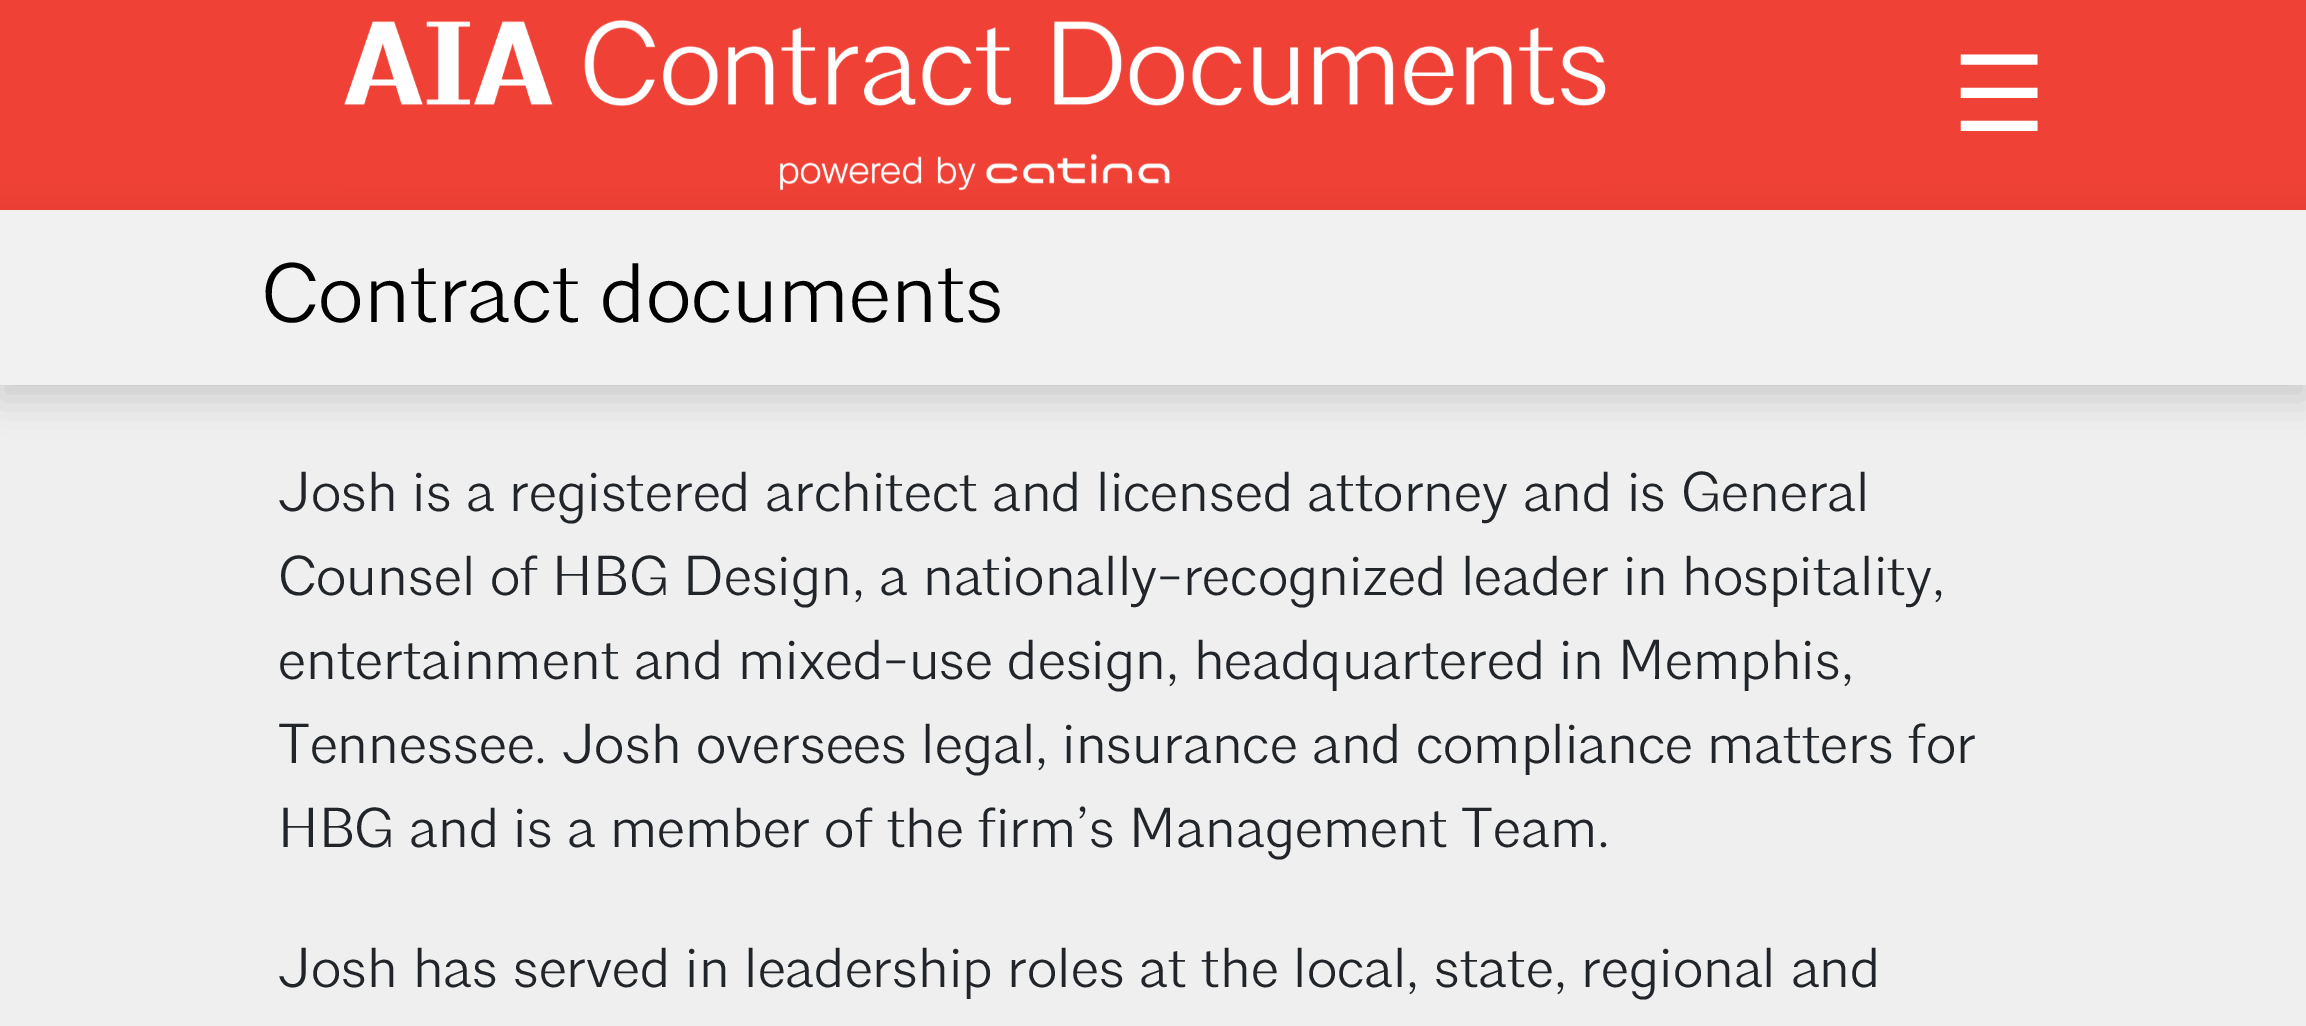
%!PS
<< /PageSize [2306 1026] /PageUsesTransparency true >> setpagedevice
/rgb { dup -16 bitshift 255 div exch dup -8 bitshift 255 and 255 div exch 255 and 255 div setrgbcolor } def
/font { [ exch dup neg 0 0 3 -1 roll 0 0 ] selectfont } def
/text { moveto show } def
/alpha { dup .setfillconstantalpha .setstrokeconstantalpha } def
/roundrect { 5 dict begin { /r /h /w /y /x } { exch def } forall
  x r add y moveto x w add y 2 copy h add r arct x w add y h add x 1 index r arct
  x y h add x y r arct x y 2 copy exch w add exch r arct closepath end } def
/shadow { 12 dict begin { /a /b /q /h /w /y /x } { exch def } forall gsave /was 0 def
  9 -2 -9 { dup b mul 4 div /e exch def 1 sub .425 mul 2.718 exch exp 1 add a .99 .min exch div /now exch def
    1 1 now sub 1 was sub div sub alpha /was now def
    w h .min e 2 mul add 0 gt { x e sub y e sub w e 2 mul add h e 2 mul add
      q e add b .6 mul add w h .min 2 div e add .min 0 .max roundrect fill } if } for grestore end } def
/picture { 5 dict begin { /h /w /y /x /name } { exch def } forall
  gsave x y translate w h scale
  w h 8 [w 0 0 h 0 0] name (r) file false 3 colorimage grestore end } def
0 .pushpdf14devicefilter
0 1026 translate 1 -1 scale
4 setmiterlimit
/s1 { /DejaVuSans-Regular 105 font 16#FFFFFF rgb } def
/s2 { /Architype-Light 84 font 16#000000 rgb } def
16#EFEFEF rgb
0 0 2306 1026 rectfill
16#EF4135 rgb
0 0 2306 210 rectfill
16#000000 rgb
0 224 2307 175 0 17.5 0.15 shadow
(pic1.raw) 344 19 1262 172 picture
s1
(☰) 1952 131 text
16#F1F1F1 rgb
0 210 2306 175 rectfill
s2
(Contract documents) 261 322 text
/Architype-Light 56 font
16#212529 rgb
278 511 moveto 0.5 0 32 (Josh is a registered architect and licensed attorney and is General) widthshow
278 595 moveto 0.5 0 32 (Counsel of HBG Design, a nationally-recognized leader in hospitality,) widthshow
278 679 moveto 0.5 0 32 (entertainment and mixed-use design, headquartered in Memphis,) widthshow
278 763 moveto 0.25 0 32 (Tennessee. Josh oversees legal, insurance and compliance matters for) widthshow
278 847 moveto 0.25 0 32 (HBG and is a member of the firm’s Management Team.) widthshow
278 987 moveto 0.75 0 32 (Josh has served in leadership roles at the local, state, regional and) widthshow
.poppdf14devicefilter showpage
